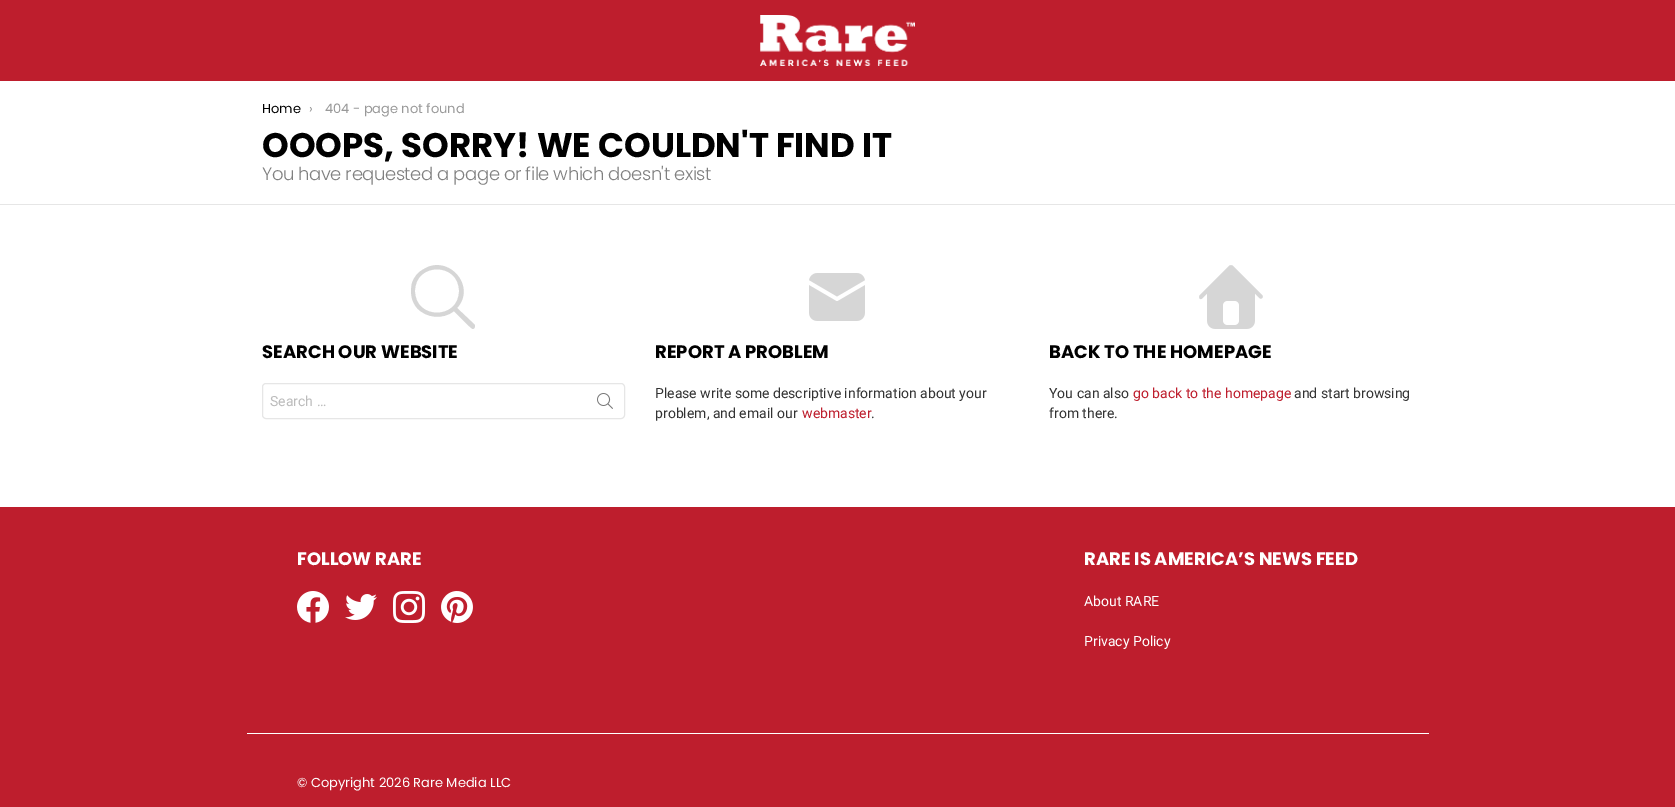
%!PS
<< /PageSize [1675 807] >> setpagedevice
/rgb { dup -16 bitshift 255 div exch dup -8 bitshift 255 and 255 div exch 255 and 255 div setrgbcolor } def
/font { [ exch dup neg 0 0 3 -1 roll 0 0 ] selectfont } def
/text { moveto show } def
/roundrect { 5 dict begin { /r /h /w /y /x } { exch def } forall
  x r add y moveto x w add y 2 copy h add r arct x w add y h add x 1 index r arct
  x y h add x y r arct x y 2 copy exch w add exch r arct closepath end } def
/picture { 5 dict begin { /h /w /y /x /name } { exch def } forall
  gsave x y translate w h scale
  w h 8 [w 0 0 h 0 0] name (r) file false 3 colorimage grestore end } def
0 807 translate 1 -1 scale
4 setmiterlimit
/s1 { /Poppins-Regular 13 font 16#000000 rgb } def
/s2 { /Poppins-Regular 13 font 16#999999 rgb } def
/s3 { /Poppins-Bold 34 font 16#000000 rgb } def
/s4 { /Poppins-Bold 18 font 16#000000 rgb } def
/s5 { /Roboto-Regular 14 font 16#BCBCBC rgb } def
/s6 { /Roboto-Regular 14 font 16#333333 rgb } def
/s7 { /Roboto-Regular 14 font 16#BE1E2D rgb } def
/s8 { /Poppins-Bold 18 font 16#FFFFFF rgb } def
/s9 { /Roboto-Regular 14 font 16#FFFFFF rgb } def
/s10 { /Poppins-Regular 13 font 16#FFFFFF rgb } def
16#FFFFFF rgb
0 0 1675 807 rectfill
16#BE1E2D rgb
0 0 1675 81 rectfill
(pic1.raw) 760 15 155 51 picture
s1
(Home) 262 113 text
s2
(›) 309 113 text
(404 - page not found) 325 113 text
s3
(OOOPS, SORRY! WE COULDN'T FIND IT) 262 157 text
/Poppins-Light 18 font
16#808080 rgb
262 180 moveto -0.45 0 (You have requested a page or file which doesn't exist) ashow
16#E6E6E6 rgb
0 204 1675 1 rectfill
16#D6D6D6 rgb
475 325 moveto 457 308 lineto 477 286 448 254 424 269 curveto 418 272 414 277 412 283 curveto 410 292 411 301 417 308 curveto 426 318 443 320 454 311 curveto 456 313 471 329 473 329 curveto 475 328 475 327 475 325 curveto closepath 415 291 moveto 415 262 459 262 459 291 curveto 459 320 415 320 415 291 curveto closepath fill
s4
(SEARCH OUR WEBSITE) 262 358 text
16#E6E6E6 rgb
262.5 383.5 362 35 3.5 roundrect stroke
s5
(Search …) 270 406 text
(pic2.raw) 597 393 16 16 picture
(pic3.raw) 809 273 56 48 picture
s4
(REPORT A PROBLEM) 655 358 text
s6
(Please write some descriptive information about your) 655 398 text
(problem, and email our) 655 418 text
s7
(webmaster) 802 418 text
s6
(.) 871 418 text
(pic4.raw) 1199 265 64 64 picture
s4
(BACK TO THE HOMEPAGE) 1049 358 text
s6
(You can also) 1049 398 text
s7
(go back to the homepage) 1133 398 text
s6
(and start browsing) 1294 398 text
(from there.) 1049 418 text
16#BE1E2D rgb
0 507 1675 300 rectfill
16#FFFFFF rgb
247 733 1182 1 rectfill
s8
(FOLLOW RARE) 297 565 text
(pic5.raw) 297 591 32 32 picture
(pic6.raw) 345 594 32 26 picture
(pic7.raw) 393 591 32 32 picture
(pic8.raw) 441 591 32 32 picture
(RARE IS AMERICA’S NEWS FEED) 1084 565 text
s9
(About RARE) 1084 606 text
(Privacy Policy) 1084 646 text
s10
(© Copyright 2026 Rare Media LLC) 297 787 text
showpage
